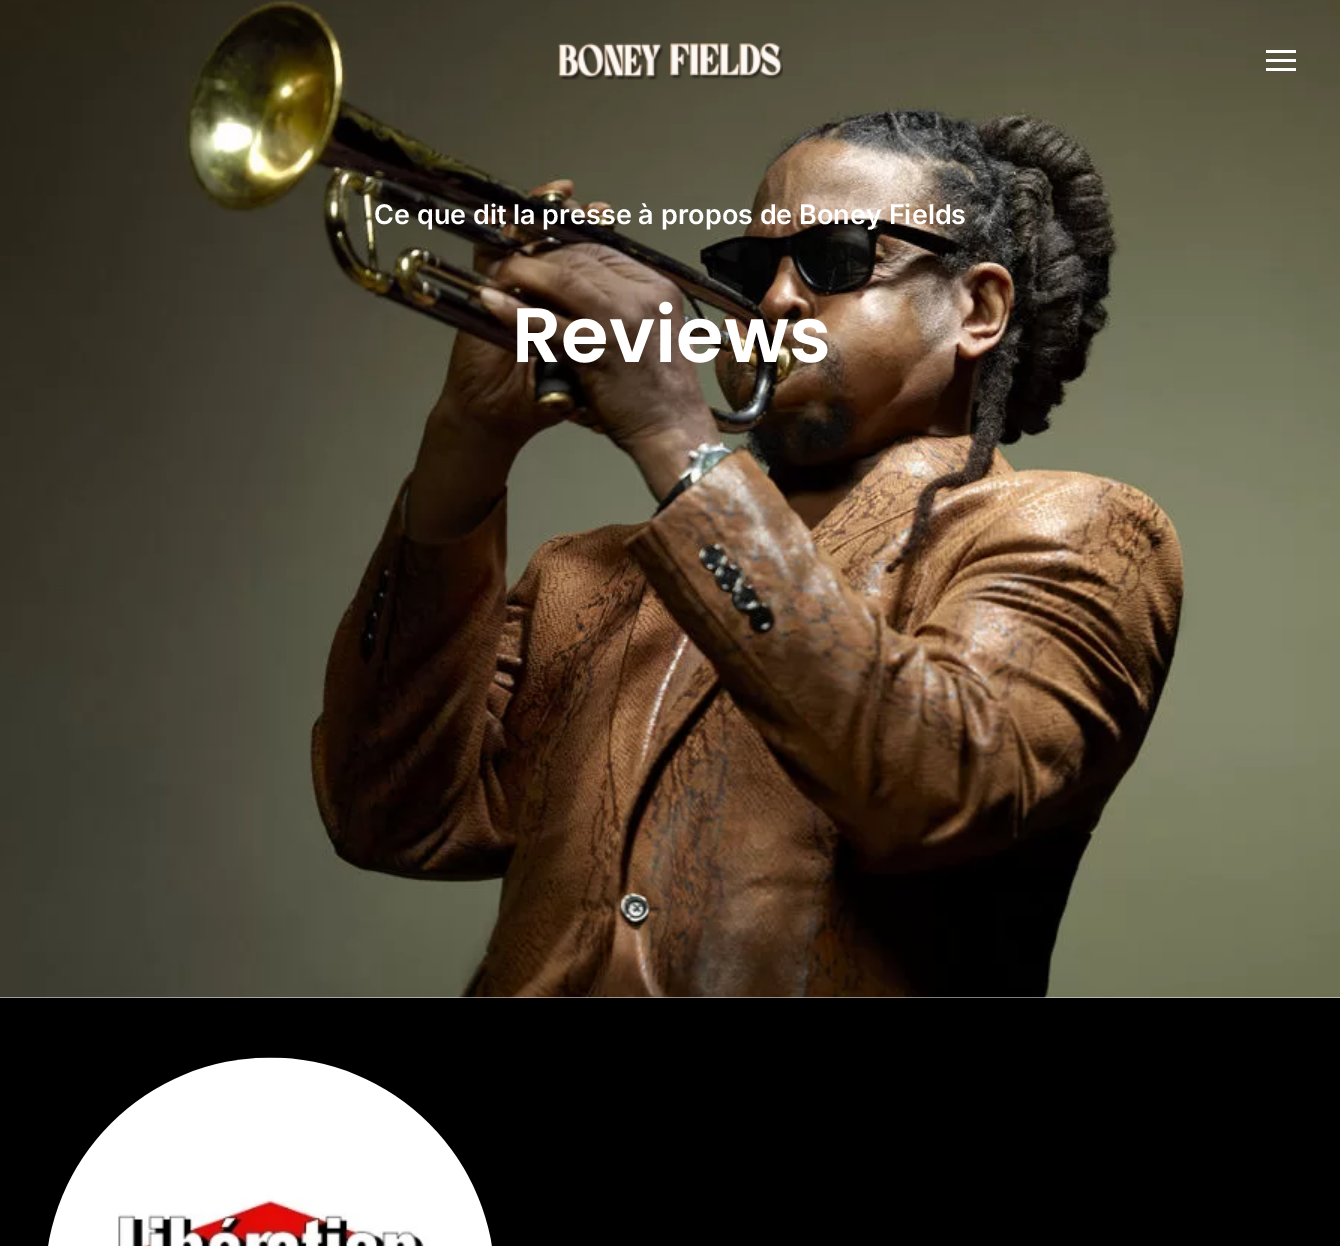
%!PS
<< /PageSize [1340 1246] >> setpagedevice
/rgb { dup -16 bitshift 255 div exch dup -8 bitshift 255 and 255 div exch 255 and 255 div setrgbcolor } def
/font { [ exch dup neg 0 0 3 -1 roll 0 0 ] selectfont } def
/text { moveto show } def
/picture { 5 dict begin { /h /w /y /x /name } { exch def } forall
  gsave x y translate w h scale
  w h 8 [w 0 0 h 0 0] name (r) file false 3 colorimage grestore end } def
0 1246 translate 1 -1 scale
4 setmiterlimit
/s1 { /Inter-SemiBold 27 font 16#FFFFFF rgb } def
/s2 { /Poppins-SemiBold 77 font 16#FFFFFF rgb } def
16#FFFFFF rgb
0 0 1340 1246 rectfill
(pic2.raw) 0 0 1340 998 picture
(pic1.raw) 558 42 225 38 picture
1266 50 30 3 rectfill
1266 59 30 3 rectfill
1266 68 30 3 rectfill
s1
(Ce que dit la presse à propos de Boney Fields) 374 224 text
s2
(Reviews) 512 362 text
16#000000 rgb
0 998 1340 248 rectfill
(pic3.raw) 48 1057 444 189 picture
showpage
